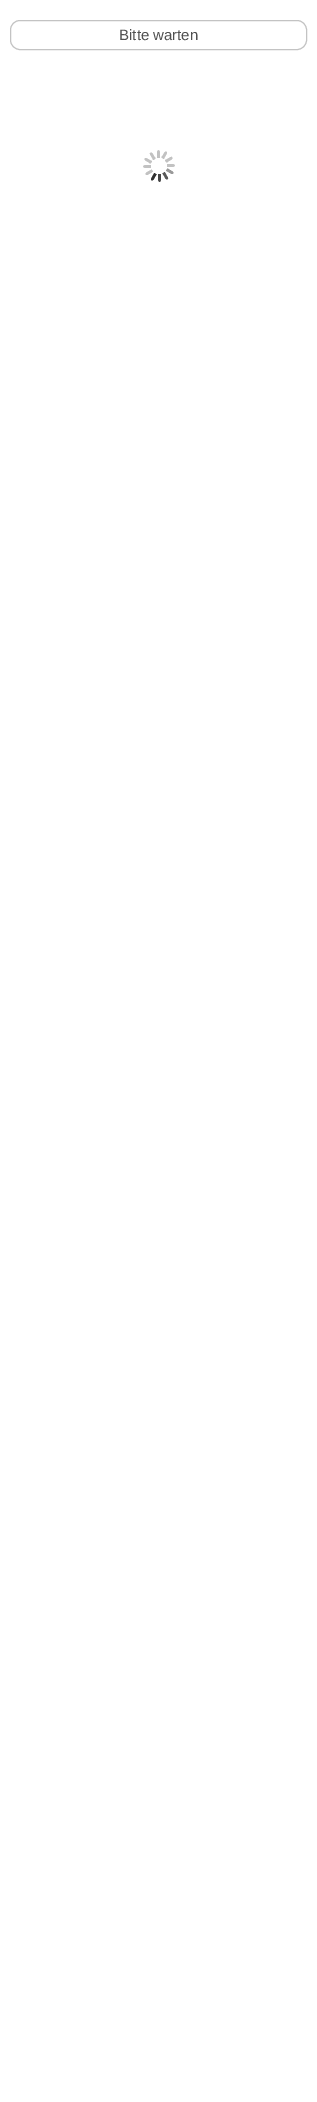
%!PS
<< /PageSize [317 2102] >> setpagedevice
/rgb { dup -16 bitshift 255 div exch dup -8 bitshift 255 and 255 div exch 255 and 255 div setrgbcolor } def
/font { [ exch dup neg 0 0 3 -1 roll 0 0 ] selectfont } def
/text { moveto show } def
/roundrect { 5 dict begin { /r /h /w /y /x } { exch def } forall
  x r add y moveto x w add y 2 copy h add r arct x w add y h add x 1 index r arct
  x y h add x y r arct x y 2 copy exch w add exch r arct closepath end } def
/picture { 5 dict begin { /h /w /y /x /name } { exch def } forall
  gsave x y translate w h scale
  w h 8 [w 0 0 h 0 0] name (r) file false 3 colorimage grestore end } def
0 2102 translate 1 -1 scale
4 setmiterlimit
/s1 { /LiberationSans-Regular 15 font 16#505050 rgb } def
16#FFFFFF rgb
0 0 317 2102 rectfill
(pic1.raw) 143 150 32 32 picture
16#C3C3C3 rgb
10.5 20.5 296 29 9.5 roundrect stroke
s1
(Bitte warten) 119 40 text
showpage
